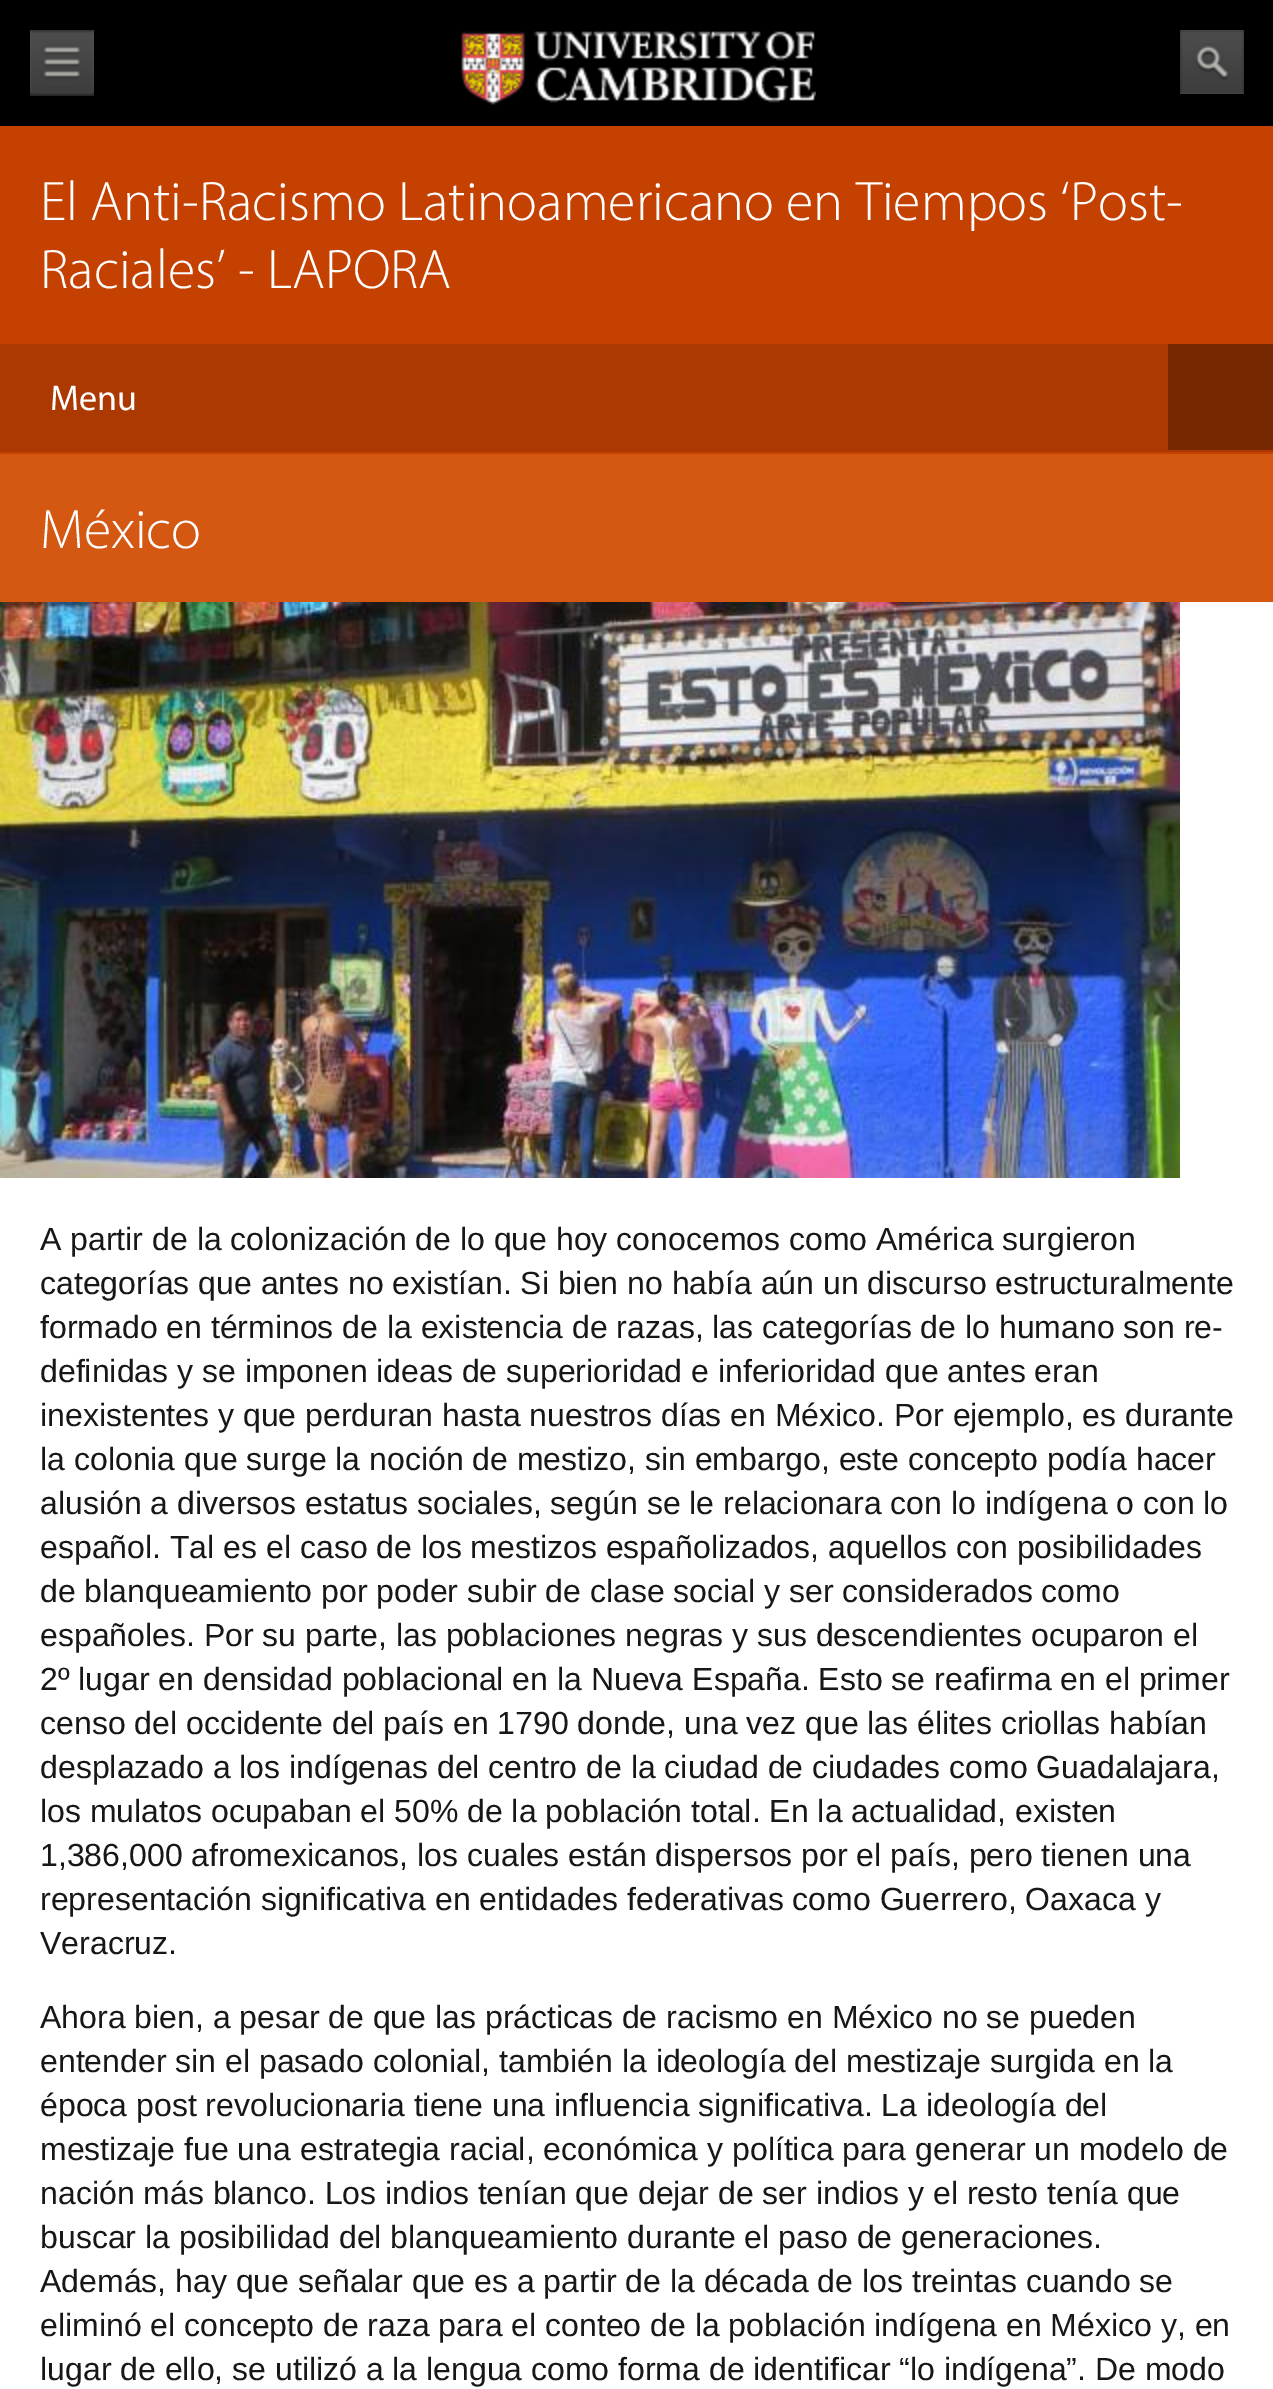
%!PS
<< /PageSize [1273 2389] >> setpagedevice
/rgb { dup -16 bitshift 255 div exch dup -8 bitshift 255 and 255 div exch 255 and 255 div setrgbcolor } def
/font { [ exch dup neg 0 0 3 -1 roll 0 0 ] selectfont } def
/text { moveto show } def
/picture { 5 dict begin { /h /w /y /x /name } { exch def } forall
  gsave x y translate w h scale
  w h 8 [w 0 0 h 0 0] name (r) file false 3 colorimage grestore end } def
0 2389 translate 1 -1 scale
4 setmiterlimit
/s1 { /Myriad-Light 56 font 16#FFFFFF rgb } def
/s2 { /Myriad-Regular 36 font 16#FFFFFF rgb } def
/s3 { /LiberationSans-Regular 32 font 16#171717 rgb } def
16#000000 rgb
0 0 1273 2389 rectfill
(pic1.raw) 30 30 64 66 picture
(pic2.raw) 461 31 355 74 picture
(pic3.raw) 1180 30 64 64 picture
16#C44101 rgb
0 126 1273 218 rectfill
s1
(El Anti-Racismo Latinoamericano en Tiempos ‘Post-) 40 220 text
(Raciales’ - LAPORA) 40 288 text
16#AB3901 rgb
0 344 1273 108 rectfill
16#C44101 rgb
0 452 1273 2 rectfill
s2
(Menu) 50 410 text
16#772801 rgb
1168 344 105 106 rectfill
16#D45812 rgb
0 454 1273 148 rectfill
s1
(México) 40 548 text
0 602 1273 1787 rectfill
(pic4.raw) 0 602 1180 576 picture
s3
(A partir de la colonización de lo que hoy conocemos como América surgieron) 40 1250 text
(categorías que antes no existían. Si bien no había aún un discurso estructuralmente) 40 1294 text
(formado en términos de la existencia de razas, las categorías de lo humano son re-) 40 1338 text
(definidas y se imponen ideas de superioridad e inferioridad que antes eran) 40 1382 text
(inexistentes y que perduran hasta nuestros días en México. Por ejemplo, es durante) 40 1426 text
(la colonia que surge la noción de mestizo, sin embargo, este concepto podía hacer) 40 1470 text
(alusión a diversos estatus sociales, según se le relacionara con lo indígena o con lo) 40 1514 text
(español. Tal es el caso de los mestizos españolizados, aquellos con posibilidades) 40 1558 text
(de blanqueamiento por poder subir de clase social y ser considerados como) 40 1602 text
(españoles. Por su parte, las poblaciones negras y sus descendientes ocuparon el) 40 1646 text
(2º lugar en densidad poblacional en la Nueva España. Esto se reafirma en el primer) 40 1690 text
(censo del occidente del país en 1790 donde, una vez que las élites criollas habían) 40 1734 text
(desplazado a los indígenas del centro de la ciudad de ciudades como Guadalajara,) 40 1778 text
(los mulatos ocupaban el 50% de la población total. En la actualidad, existen) 40 1822 text
(1,386,000 afromexicanos, los cuales están dispersos por el país, pero tienen una) 40 1866 text
(representación significativa en entidades federativas como Guerrero, Oaxaca y) 40 1910 text
(Veracruz.) 40 1954 text
(Ahora bien, a pesar de que las prácticas de racismo en México no se pueden) 40 2028 text
(entender sin el pasado colonial, también la ideología del mestizaje surgida en la) 40 2072 text
(época post revolucionaria tiene una influencia significativa. La ideología del) 40 2116 text
(mestizaje fue una estrategia racial, económica y política para generar un modelo de) 40 2160 text
(nación más blanco. Los indios tenían que dejar de ser indios y el resto tenía que) 40 2204 text
(buscar la posibilidad del blanqueamiento durante el paso de generaciones.) 40 2248 text
(Además, hay que señalar que es a partir de la década de los treintas cuando se) 40 2292 text
(eliminó el concepto de raza para el conteo de la población indígena en México y, en) 40 2336 text
(lugar de ello, se utilizó a la lengua como forma de identificar “lo indígena”. De modo) 40 2380 text
showpage
